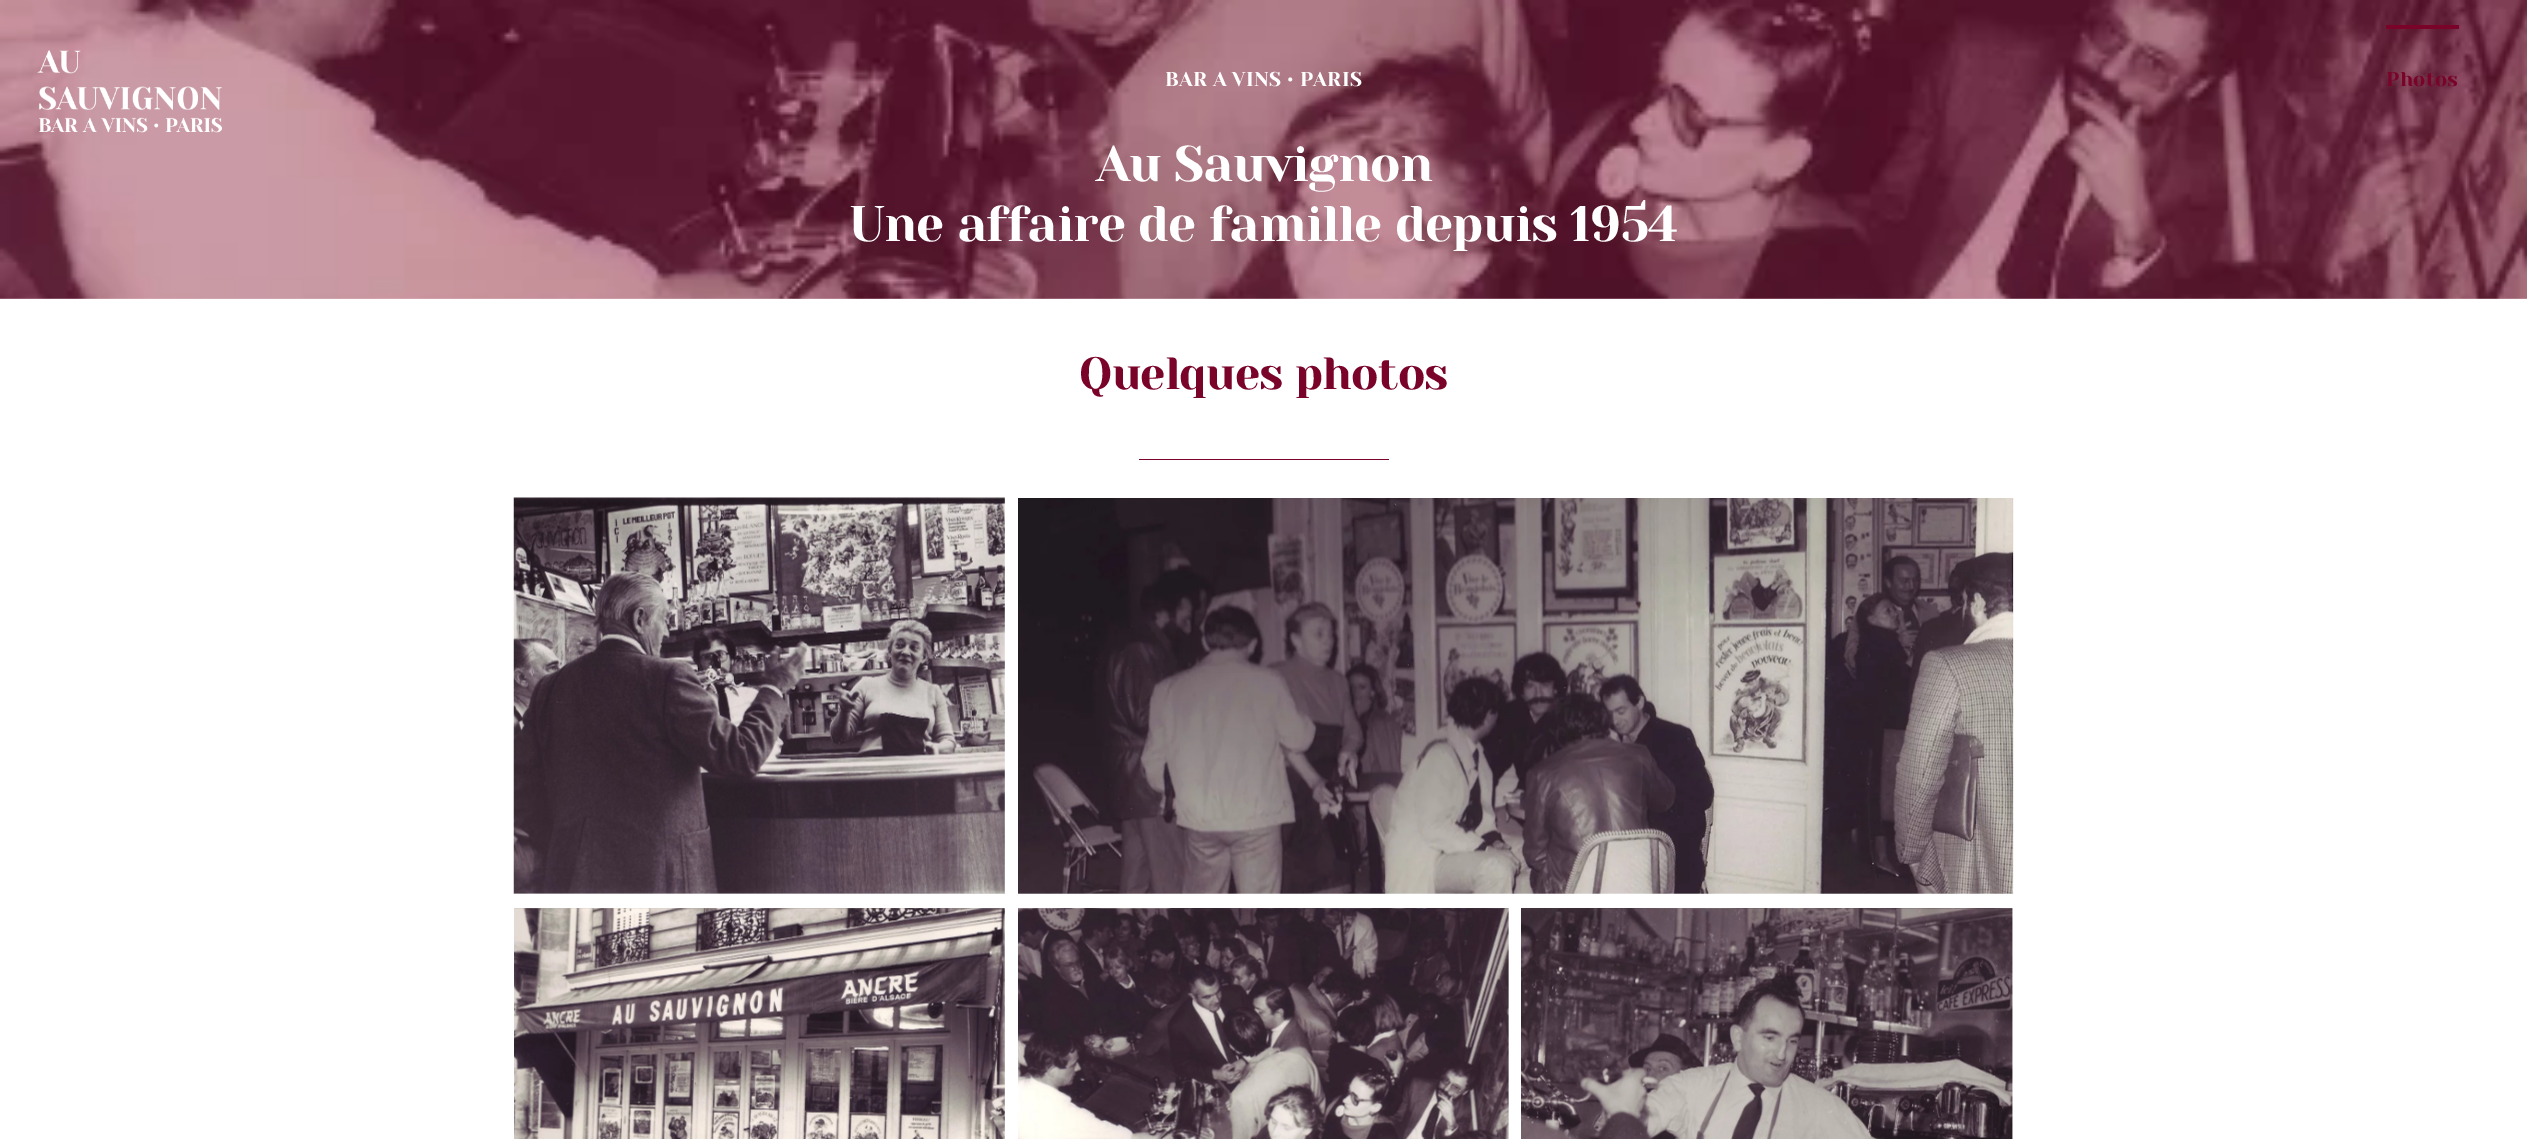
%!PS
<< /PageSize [2527 1139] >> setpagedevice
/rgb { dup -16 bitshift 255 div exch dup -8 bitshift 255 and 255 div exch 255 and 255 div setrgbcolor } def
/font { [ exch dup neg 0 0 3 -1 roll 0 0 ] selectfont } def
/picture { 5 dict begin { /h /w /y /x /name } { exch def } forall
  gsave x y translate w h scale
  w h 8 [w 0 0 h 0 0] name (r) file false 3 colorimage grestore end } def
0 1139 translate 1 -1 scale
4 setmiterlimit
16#FFFFFF rgb
0 0 2527 1139 rectfill
(pic1.raw) 0 0 2527 299 picture
/YesevaOne-Regular 20 font
1165 86 moveto 0.25 0 (BAR A VINS • PARIS) ashow
/YesevaOne-Regular 50 font
1096 181 moveto -0.75 0 (Au Sauvignon) ashow
849 241 moveto -0.75 0 (Une affaire de famille depuis 1954) ashow
/YesevaOne-Regular 45 font
16#7A0329 rgb
1079 389 moveto -0.7 0 (Quelques photos) ashow
1139 459 250 1 rectfill
(pic2.raw) 513 497 492 397 picture
(pic3.raw) 1018 498 996 396 picture
(pic4.raw) 514 908 491 231 picture
(pic5.raw) 1018 908 491 231 picture
(pic6.raw) 1521 908 492 231 picture
(pic7.raw) 37 50 185 83 picture
2386 25 73 4 rectfill
/YesevaOne-Regular 20 font
2386 86 moveto 0.25 0 (Photos) ashow
showpage
